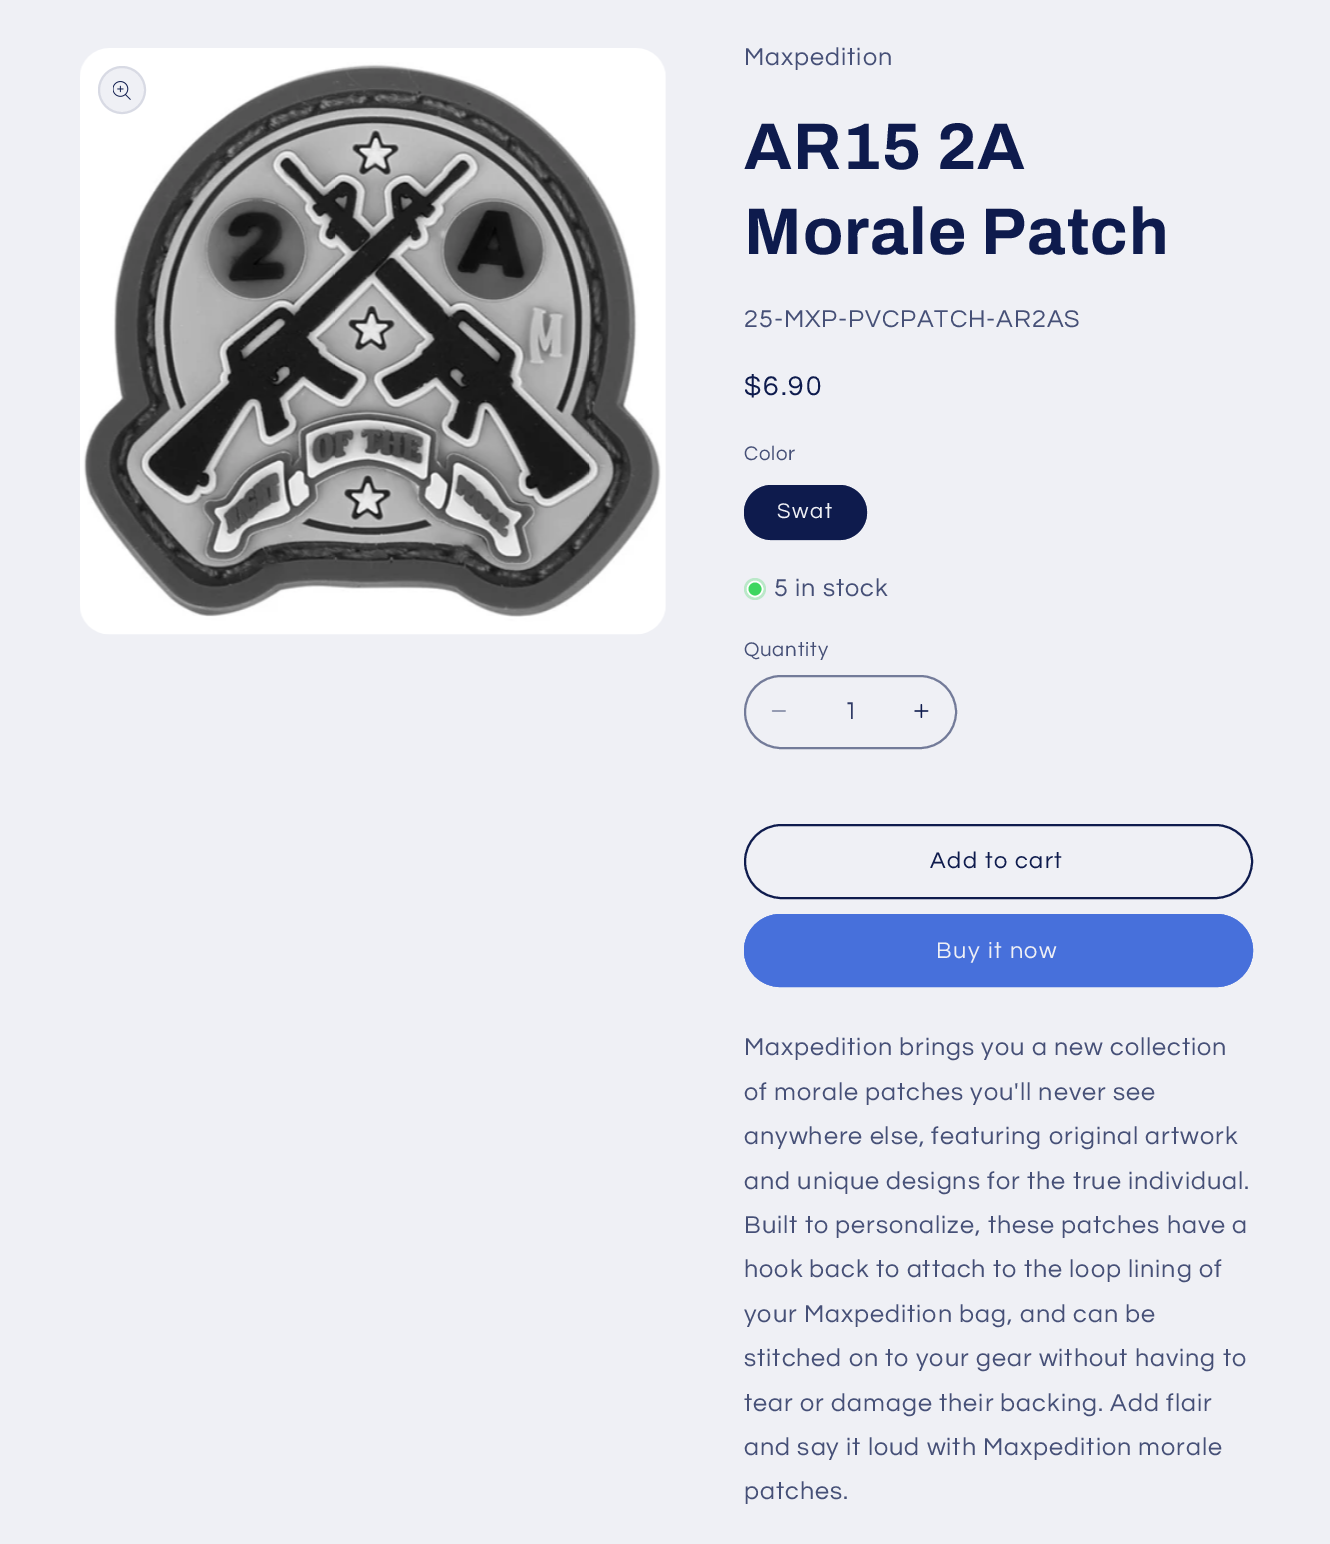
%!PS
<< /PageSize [1330 1544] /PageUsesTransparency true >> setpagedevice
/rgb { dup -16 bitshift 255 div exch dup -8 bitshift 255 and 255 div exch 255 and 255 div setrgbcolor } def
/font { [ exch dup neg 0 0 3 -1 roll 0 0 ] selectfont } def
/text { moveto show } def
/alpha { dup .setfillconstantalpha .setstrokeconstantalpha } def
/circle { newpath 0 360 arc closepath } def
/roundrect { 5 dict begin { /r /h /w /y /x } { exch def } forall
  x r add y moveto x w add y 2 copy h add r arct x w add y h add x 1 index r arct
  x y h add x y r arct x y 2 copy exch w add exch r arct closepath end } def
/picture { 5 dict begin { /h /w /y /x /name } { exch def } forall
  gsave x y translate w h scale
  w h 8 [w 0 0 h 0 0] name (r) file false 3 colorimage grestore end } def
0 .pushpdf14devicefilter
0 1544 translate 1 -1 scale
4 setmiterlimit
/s1 { /Questrial-Regular 25.2 font 16#303B66 rgb } def
16#EFF0F5 rgb
0 0 1330 1544 rectfill
(pic1.raw) 80 48 586 587 picture
122 90 24 circle fill
0.1 alpha
16#0E1B4D rgb
2 setlinewidth
122 90 23 circle stroke
1 alpha
(pic2.raw) 113 81 18 19 picture
/Questrial-Regular 25.2 font
16#465077 rgb
744 65 moveto 0.95 0 (Maxpedition) ashow
/Archivo-Bold 66 font
16#0E1B4D rgb
744 169 moveto 1 0 (AR15 2A) ashow
744 254 moveto 1 0 (Morale Patch) ashow
/Questrial-Regular 25.2 font
16#465077 rgb
744 327 moveto 0.95 0 (25-MXP-PVCPATCH-AR2AS) ashow
/Questrial-Regular 28 font
16#0E1B4D rgb
744 395 moveto 2 0 ($6.90) ashow
/Questrial-Regular 20.5 font
16#465077 rgb
744 460 moveto 0.75 0 (Color) ashow
16#0E1B4D rgb
744 485 123 55 27.5 roundrect fill
0.55 alpha
745 486 121 53 26.5 roundrect stroke
/Questrial-Regular 22 font
1 alpha
16#EFF0F5 rgb
777 518 moveto 1.5 0 (Swat) ashow
16#BAE8C8 rgb
755 589 11 circle fill
16#3ED660 rgb
755 589 7.5 circle gsave fill grestore
16#FFFFFF rgb
1.5 setlinewidth
stroke
/Questrial-Regular 25.2 font
16#465077 rgb
774 596 moveto 0.95 0 (5 in stock) ashow
/Questrial-Regular 20.5 font
744 656 moveto 0.75 0 (Quantity) ashow
(pic3.raw) 771 710 15 2 picture
(pic4.raw) 914 704 15 14 picture
16#737B99 rgb
2 setlinewidth
745 676 211 72 36 roundrect stroke
s1
(1) 844 719 text
16#0E1B4D rgb
745 825 507 73 36.5 roundrect stroke
/Questrial-Regular 23.5 font
930 868 moveto 1.5 0 (Add to cart) ashow
16#4770DB rgb
744 914 509 73 36.5 roundrect fill
745 915 507 71 35.5 roundrect stroke
16#EFF0F5 rgb
936 958 moveto 1.5 0 (Buy it now) ashow
/Questrial-Regular 25.2 font
16#465077 rgb
744 1055 moveto 0.95 0 (Maxpedition brings you a new collection) ashow
744 1100 moveto 0.95 0 (of morale patches you'll never see) ashow
744 1144 moveto 0.95 0 (anywhere else, featuring original artwork) ashow
744 1189 moveto 0.95 0 (and unique designs for the true individual.) ashow
744 1233 moveto 0.95 0 (Built to personalize, these patches have a) ashow
744 1277 moveto 0.95 0 (hook back to attach to the loop lining of) ashow
744 1322 moveto 0.95 0 (your Maxpedition bag, and can be) ashow
744 1366 moveto 0.95 0 (stitched on to your gear without having to) ashow
744 1411 moveto 0.95 0 (tear or damage their backing. Add flair) ashow
744 1455 moveto 0.95 0 (and say it loud with Maxpedition morale) ashow
744 1499 moveto 0.95 0 (patches.) ashow
.poppdf14devicefilter showpage
